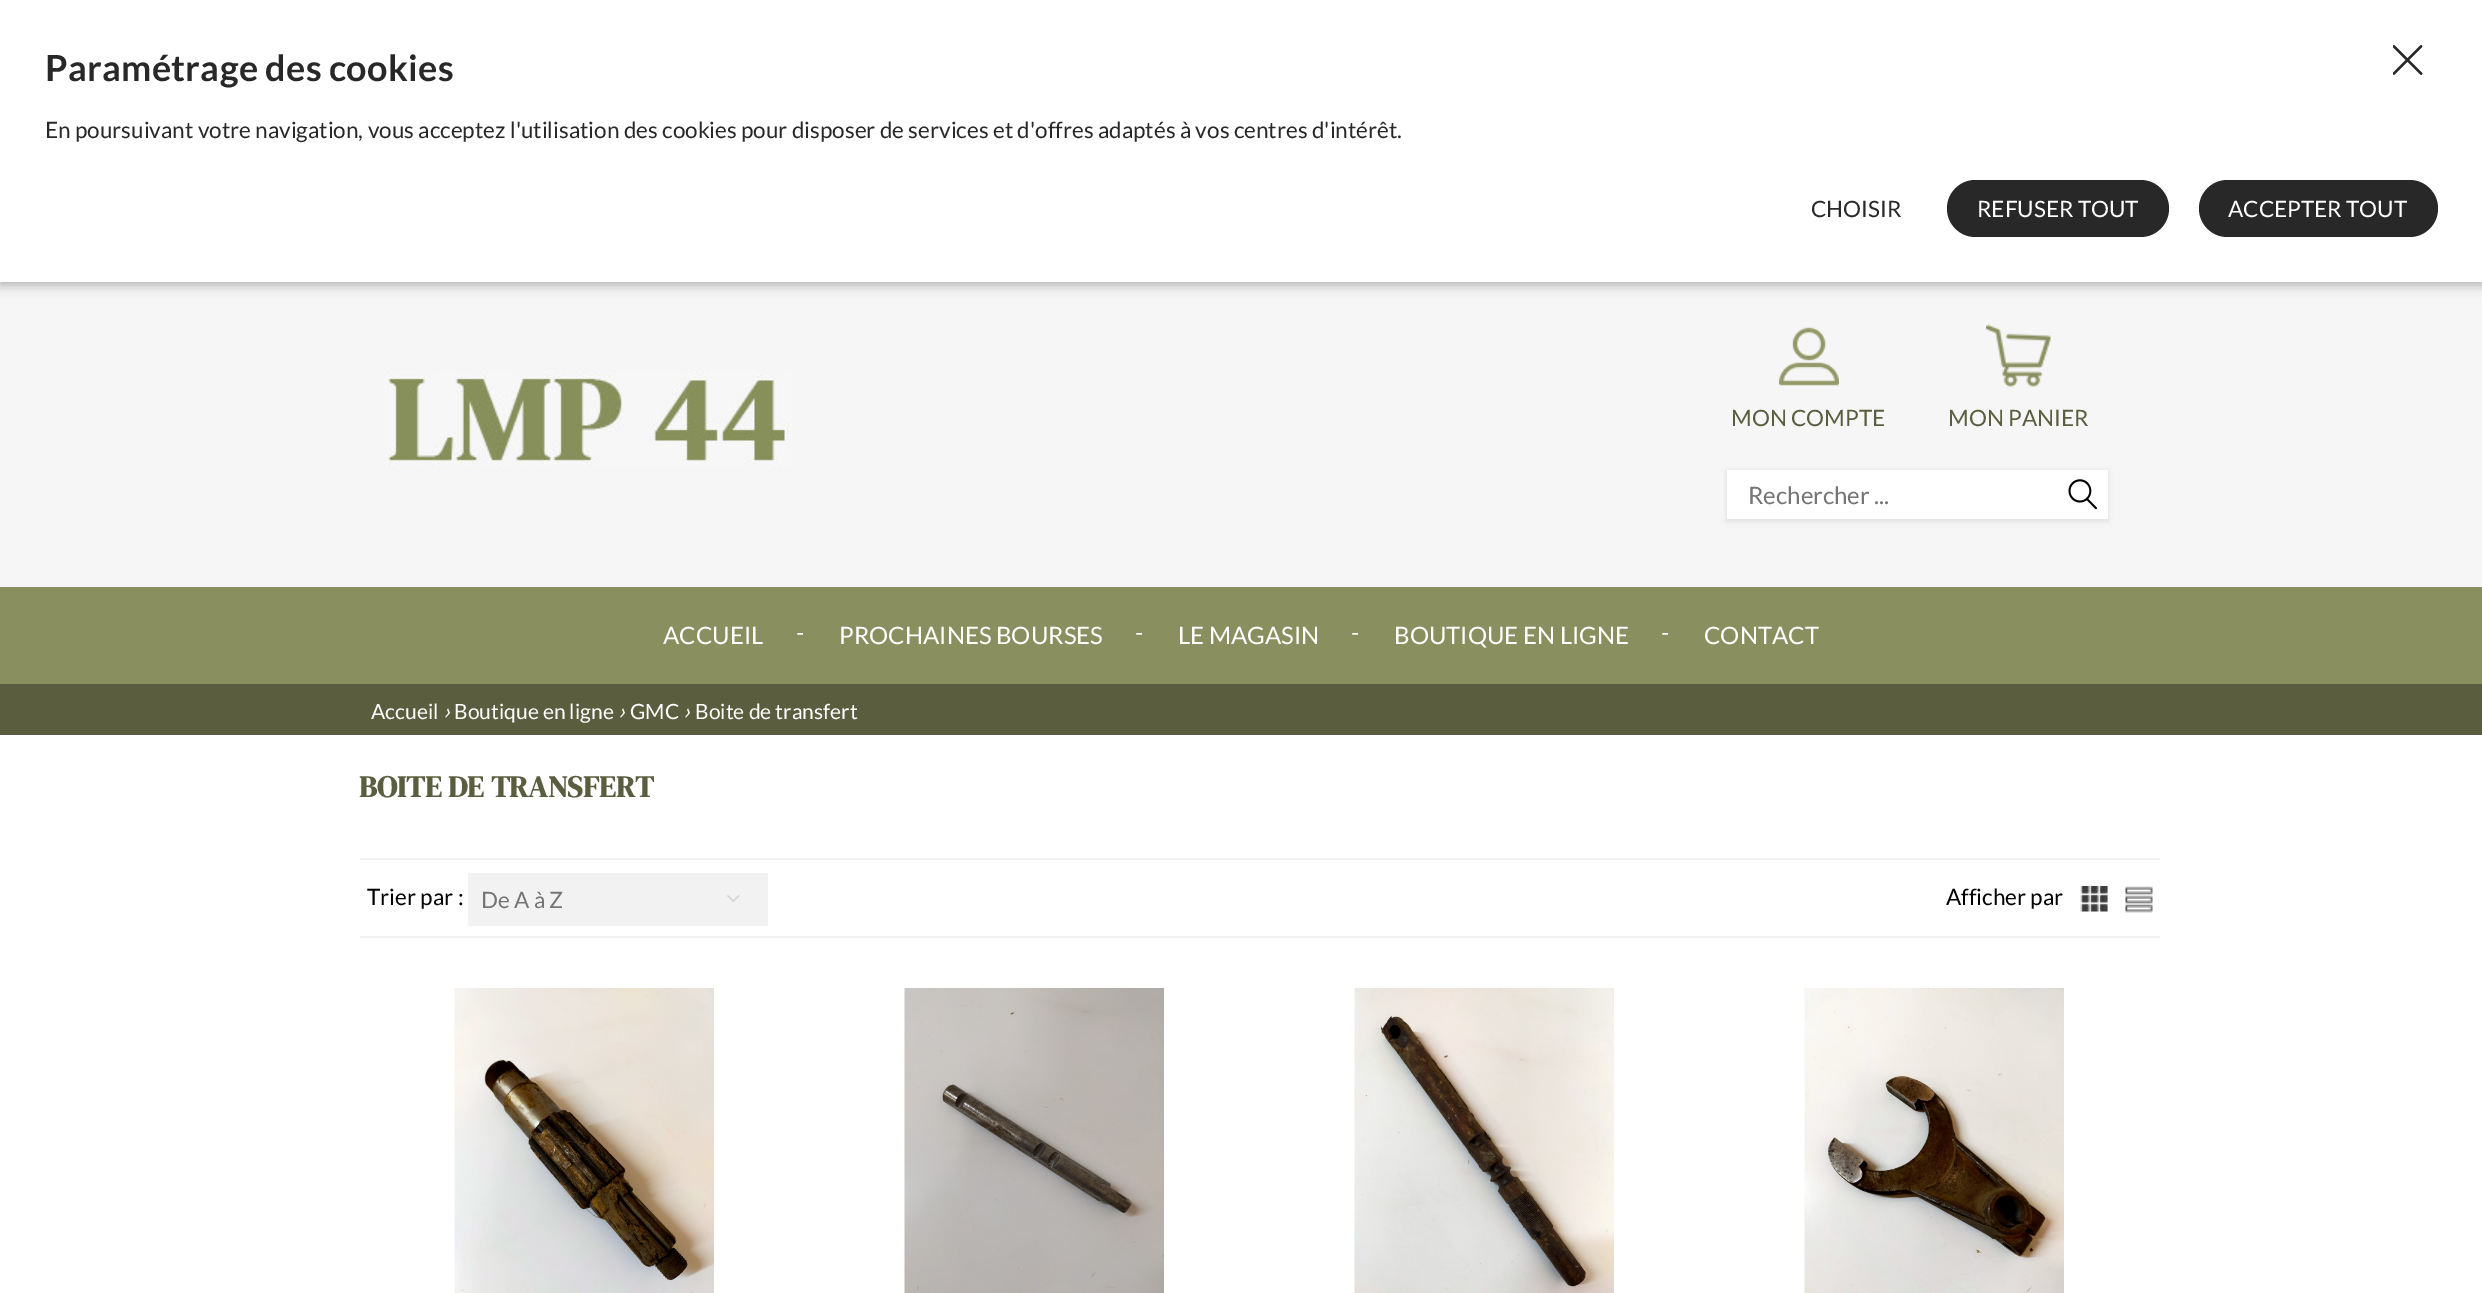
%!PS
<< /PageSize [2482 1293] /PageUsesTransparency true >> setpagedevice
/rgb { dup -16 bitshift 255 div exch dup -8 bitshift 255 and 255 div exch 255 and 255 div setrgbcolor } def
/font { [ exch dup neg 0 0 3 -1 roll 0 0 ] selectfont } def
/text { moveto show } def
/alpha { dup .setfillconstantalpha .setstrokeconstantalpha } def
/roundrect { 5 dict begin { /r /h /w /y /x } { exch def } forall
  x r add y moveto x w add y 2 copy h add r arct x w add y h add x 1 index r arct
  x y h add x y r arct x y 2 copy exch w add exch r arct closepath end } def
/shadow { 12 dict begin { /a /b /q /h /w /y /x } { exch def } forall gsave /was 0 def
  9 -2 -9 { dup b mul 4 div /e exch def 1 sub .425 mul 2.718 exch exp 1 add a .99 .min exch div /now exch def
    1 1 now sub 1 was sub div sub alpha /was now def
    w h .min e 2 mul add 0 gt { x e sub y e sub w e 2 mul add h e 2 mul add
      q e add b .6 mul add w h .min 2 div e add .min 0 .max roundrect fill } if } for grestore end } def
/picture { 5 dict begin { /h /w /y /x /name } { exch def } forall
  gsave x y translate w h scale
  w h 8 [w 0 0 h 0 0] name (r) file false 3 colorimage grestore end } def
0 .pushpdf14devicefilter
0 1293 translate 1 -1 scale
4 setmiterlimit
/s1 { /Lato-Regular 22.5 font 16#282828 rgb } def
/s2 { /Lato-Regular 22.5 font 16#FFFFFF rgb } def
/s3 { /Lato-Regular 22.5 font 16#5A5D3E rgb } def
/s4 { /Lato-Regular 24 font 16#757575 rgb } def
/s5 { /Lato-Regular 24 font 16#FFFFFF rgb } def
/s6 { /Lato-Regular 21 font 16#FFFFFF rgb } def
/s7 { /Lato-Italic 22.5 font 16#FFFFFF rgb } def
/s8 { /DMSerifDisplay-Bold 30 font 16#5A5D3E rgb } def
/s9 { /Lato-Regular 22.5 font 16#000000 rgb } def
/s10 { /Lato-Regular 22.5 font 16#757575 rgb } def
16#FFFFFF rgb
0 0 2482 1293 rectfill
16#F6F6F6 rgb
0 282 2482 305 rectfill
16#000000 rgb
0 3 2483 282 0 6 0.3 shadow
16#FFFFFF rgb
0 0 2482 282 rectfill
/Lato-Bold 36 font
16#282828 rgb
45 81 moveto 0.3 0 (Paramétrage des cookies) ashow
(pic1.raw) 2393 45 30 30 picture
s1
(En poursuivant votre navigation, vous acceptez l'utilisation des cookies pour disposer de services et d'offres adaptés à vos centres d'intérêt.) 45 138 text
(CHOISIR) 1811 217 text
1947 180 222 57 28.5 roundrect fill
s2
(REFUSER TOUT) 1977 217 text
16#282828 rgb
2199 180 239 57 28.5 roundrect fill
s2
(ACCEPTER TOUT) 2228 217 text
(pic2.raw) 384 371 408 97 picture
(pic3.raw) 1779 327 60 59 picture
s3
(MON COMPTE) 1731 426 text
(pic4.raw) 1986 324 65 63 picture
(MON PANIER) 1948 426 text
16#000000 rgb
1727 471 381 50 0 3 0.1 shadow
16#FFFFFF rgb
1727 470 381 49 rectfill
s4
(Rechercher ...) 1748 504 text
(pic5.raw) 2068 479 29 31 picture
16#8A8F5F rgb
0 587 2482 97 rectfill
s5
(ACCUEIL) 663 644 text
(-) 796 641 text
(PROCHAINES BOURSES) 839 644 text
(-) 1135 641 text
(LE MAGASIN) 1178 644 text
(-) 1351 641 text
(BOUTIQUE EN LIGNE) 1394 644 text
(-) 1661 641 text
(CONTACT) 1704 644 text
16#5A5D3E rgb
0 684 2482 51 rectfill
s6
(Accueil) 371 719 text
s7
(›) 443 719 text
s6
(Boutique en ligne) 454 719 text
s7
(›) 618 719 text
s6
(GMC) 630 719 text
s7
(›) 683 719 text
s6
(Boite de transfert) 695 719 text
s8
(BOITE DE TRANSFERT) 359 797 text
16#F2F2F2 rgb
360 858 1800 2 rectfill
360 936 1800 2 rectfill
s9
(Trier par :) 367 905 text
16#F2F4F6 rgb
468 873 300 53 rectfill
16#F2F2F2 rgb
468 873 300 53 3 roundrect fill
s10
(De A à Z) 481 908 text
(pic6.raw) 727 895 13 7 picture
s9
(Afficher par) 1946 905 text
(pic7.raw) 2080 886 28 26 picture
(pic8.raw) 2125 886 28 27 picture
(pic9.raw) 454 988 260 305 picture
(pic10.raw) 904 988 260 305 picture
(pic11.raw) 1354 988 260 305 picture
(pic12.raw) 1804 988 260 305 picture
.poppdf14devicefilter showpage
